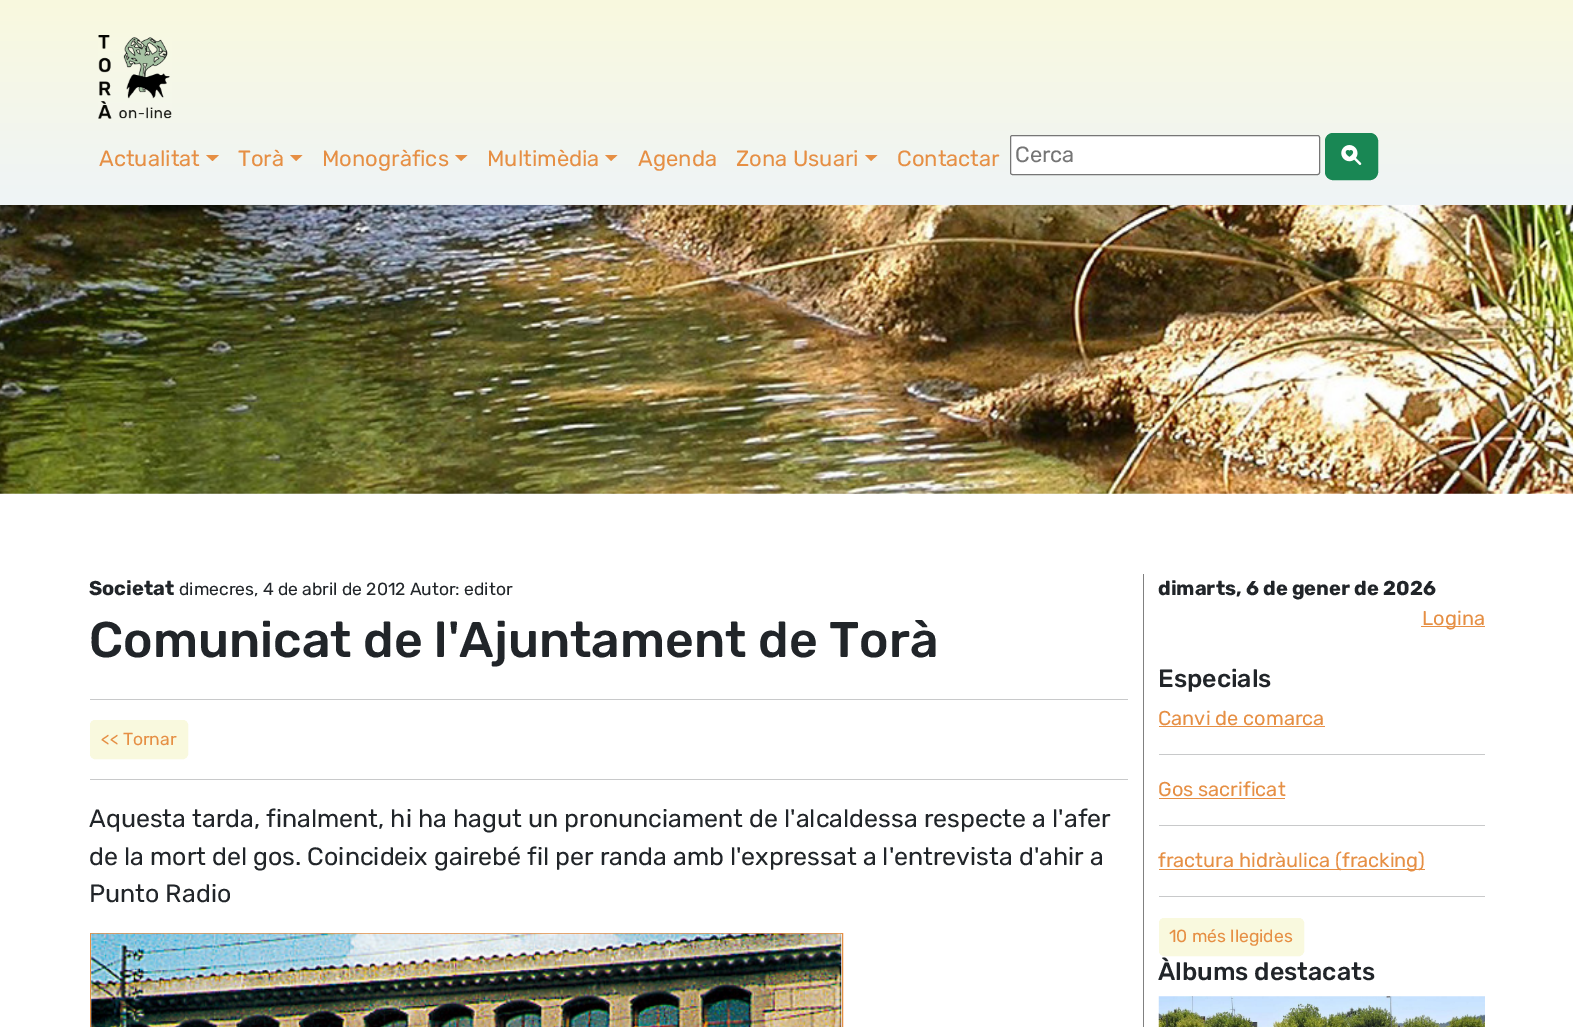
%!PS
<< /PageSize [1573 1027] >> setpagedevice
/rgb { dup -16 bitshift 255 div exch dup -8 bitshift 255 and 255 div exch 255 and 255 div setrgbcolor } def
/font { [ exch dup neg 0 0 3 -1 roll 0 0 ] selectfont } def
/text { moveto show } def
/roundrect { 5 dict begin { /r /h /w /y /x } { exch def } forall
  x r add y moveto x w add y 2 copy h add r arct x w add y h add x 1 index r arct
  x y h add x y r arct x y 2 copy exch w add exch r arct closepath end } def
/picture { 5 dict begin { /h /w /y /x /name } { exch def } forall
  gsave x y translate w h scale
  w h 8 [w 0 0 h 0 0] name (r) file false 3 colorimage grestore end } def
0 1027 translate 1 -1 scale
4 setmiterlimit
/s1 { /Rubik-Regular 22 font 16#E68F44 rgb } def
/s2 { /Rubik-Regular 22 font 16#757575 rgb } def
/s3 { /Rubik-Bold 20 font 16#212529 rgb } def
/s4 { /Rubik-Regular 17.5 font 16#212529 rgb } def
/s5 { /Rubik-Medium 50 font 16#212529 rgb } def
/s6 { /Rubik-Regular 17.5 font 16#E68F44 rgb } def
/s7 { /Rubik-Regular 25 font 16#212529 rgb } def
/s8 { /Rubik-Regular 20 font 16#E68F44 rgb } def
/s9 { /Rubik-Medium 25 font 16#212529 rgb } def
16#FFFFFF rgb
0 0 1573 1027 rectfill
gsave 0 0 moveto 1573 0 lineto 1573 205 lineto 0 205 lineto closepath clip newpath
<< /ShadingType 2 /ColorSpace /DeviceRGB /Coords [787 0 787 205] /Extend [true true] /Function << /FunctionType 2 /Domain [0 1] /C0 [0.976 0.976 0.871] /C1 [0.937 0.957 0.969] /N 1 >> >> shfill grestore
(pic1.raw) 98 35 74 84 picture
s1
(Actualitat) 99 166 text
206 155 moveto 219 155 lineto 212.5 161 lineto closepath fill
(Torà) 238 166 text
290 155 moveto 302.5 155 lineto 296 161 lineto closepath fill
(Monogràfics) 322 166 text
455 155 moveto 467.5 155 lineto 461 161 lineto closepath fill
(Multimèdia) 487 166 text
605 155 moveto 617.5 155 lineto 611 161 lineto closepath fill
(Agenda) 638 166 text
(Zona Usuari) 736 166 text
865 155 moveto 877.5 155 lineto 871 161 lineto closepath fill
(Contactar) 897 166 text
16#FFFFFF rgb
1010.5 135.5 309 39 2 roundrect gsave fill grestore
16#767676 rgb
stroke
s2
(Cerca) 1015 162 text
16#198754 rgb
1325.5 133.5 52 46 7.5 roundrect gsave fill grestore
stroke
(pic2.raw) 1341 145 21 20 picture
(pic3.raw) 0 205 1573 289 picture
16#808080 rgb
1143 574 1 453 rectfill
s3
(Societat) 89 595 text
s4
(dimecres, 4 de abril de 2012 Autor: editor) 179 595 text
s5
(Comunicat de l'Ajuntament de Torà) 89 657 text
16#C8C9CA rgb
90 699 1038 1 rectfill
16#F9F9DE rgb
90.5 720.5 97 38 4.5 roundrect gsave fill grestore
stroke
s6
(<< Tornar) 101 745 text
16#C8C9CA rgb
90 779 1038 1 rectfill
s7
(Aquesta tarda, finalment, hi ha hagut un pronunciament de l'alcaldessa respecte a l'afer) 89 827 text
(de la mort del gos. Coincideix gairebé fil per randa amb l'expressat a l'entrevista d'ahir a) 89 865 text
(Punto Radio) 89 902 text
16#E68F44 rgb
90.5 933.5 752 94 rectstroke
(pic4.raw) 91 933 751 94 picture
s3
(dimarts, 6 de gener de 2026) 1158 595 text
16#E68F44 rgb
1421 626 64 1 rectfill
s8
(Logina) 1422 625 text
s9
(Especials) 1158 687 text
s8
(Canvi de comarca) 1158 725 text
1159 726 166 1 rectfill
16#C8C9CA rgb
1159 754 326 1 rectfill
s8
(Gos sacrificat) 1158 796 text
1159 798 126 1 rectfill
16#C8C9CA rgb
1159 825 326 1 rectfill
16#E68F44 rgb
1159 869 266 1 rectfill
(fractura hidràulica \(fracking\)) 1158 867 text
16#C8C9CA rgb
1159 896 326 1 rectfill
16#F9F9DE rgb
1159.5 918.5 144 37 4.5 roundrect gsave fill grestore
stroke
s6
(10 més llegides) 1169 942 text
s9
(Àlbums destacats) 1158 980 text
(pic5.raw) 1158 996 327 31 picture
showpage
